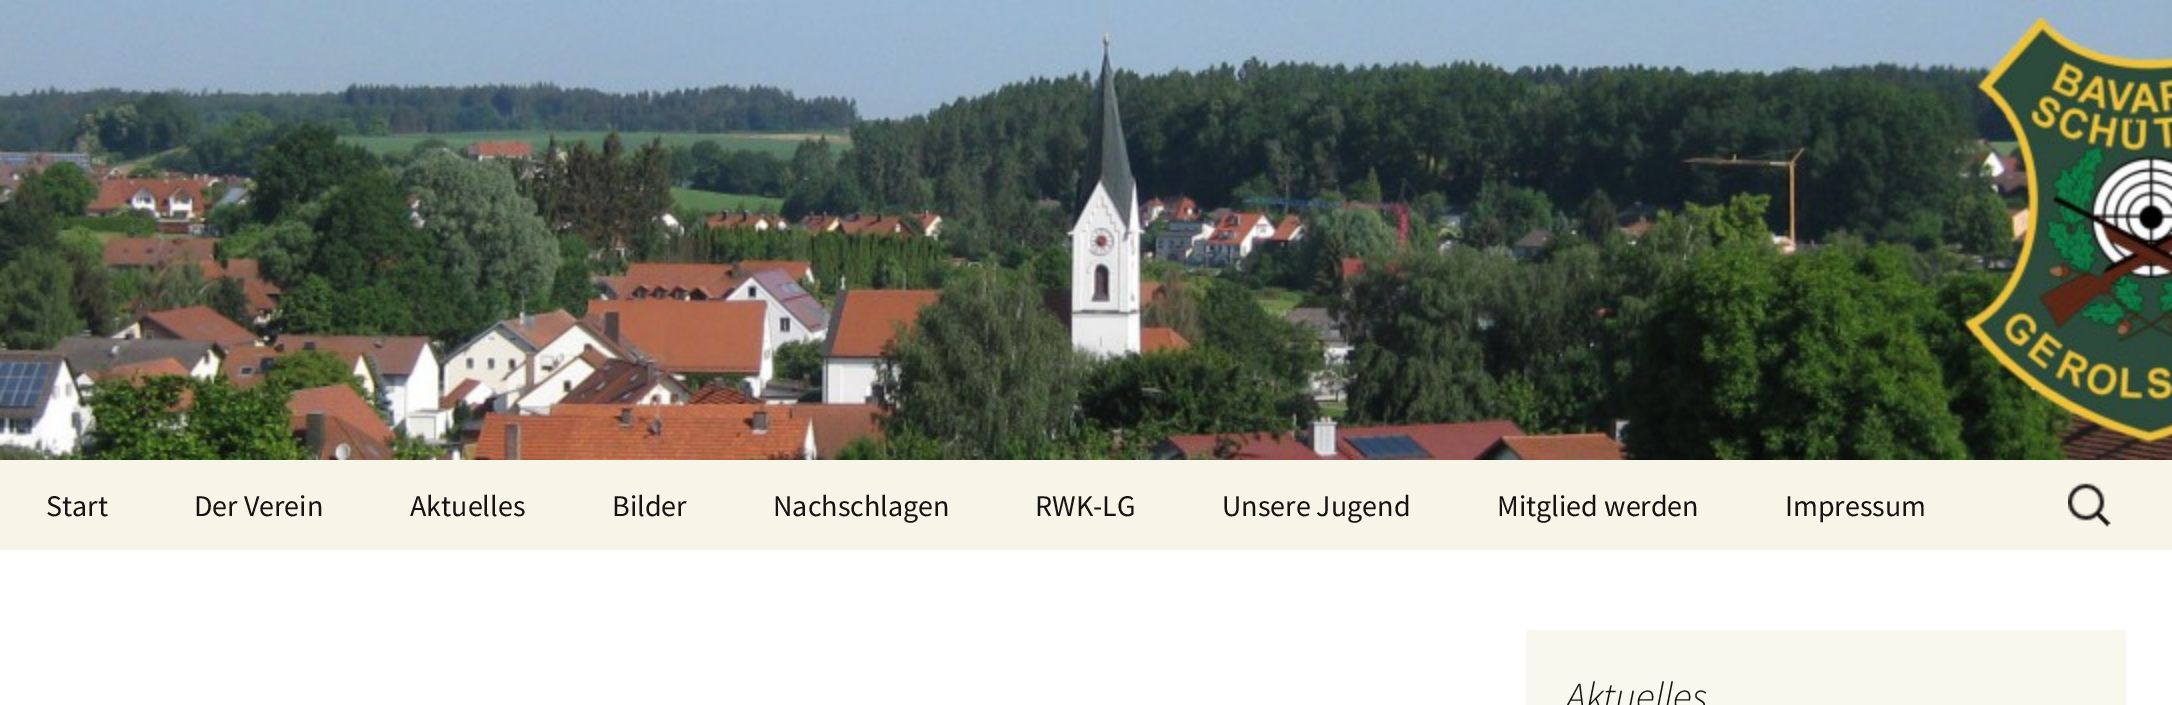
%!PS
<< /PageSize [2172 705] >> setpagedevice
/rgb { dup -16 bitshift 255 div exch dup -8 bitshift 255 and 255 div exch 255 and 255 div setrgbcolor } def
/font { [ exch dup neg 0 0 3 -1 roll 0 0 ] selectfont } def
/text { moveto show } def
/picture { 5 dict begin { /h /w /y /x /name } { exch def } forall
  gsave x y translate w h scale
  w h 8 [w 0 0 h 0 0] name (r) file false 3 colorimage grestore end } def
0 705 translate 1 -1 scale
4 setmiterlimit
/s1 { /SourceSansPro-Regular 30 font 16#141412 rgb } def
/s2 { /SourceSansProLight-LightItalic 40 font 16#141412 rgb } def
16#FFFFFF rgb
0 0 2172 705 rectfill
(pic1.raw) 0 0 2172 460 picture
16#F7F5E7 rgb
0 460 2172 90 rectfill
s1
(Start) 46 516 text
(Der Verein) 194 516 text
(Aktuelles) 410 516 text
(Bilder) 612 516 text
(Nachschlagen) 773 516 text
(RWK-LG) 1035 516 text
(Unsere Jugend) 1222 516 text
(Mitglied werden) 1497 516 text
(Impressum) 1785 516 text
(pic2.raw) 2068 483 43 44 picture
16#F9F8EE rgb
1526 630 600 75 rectfill
s2
(Aktuelles) 1566 710 text
showpage
